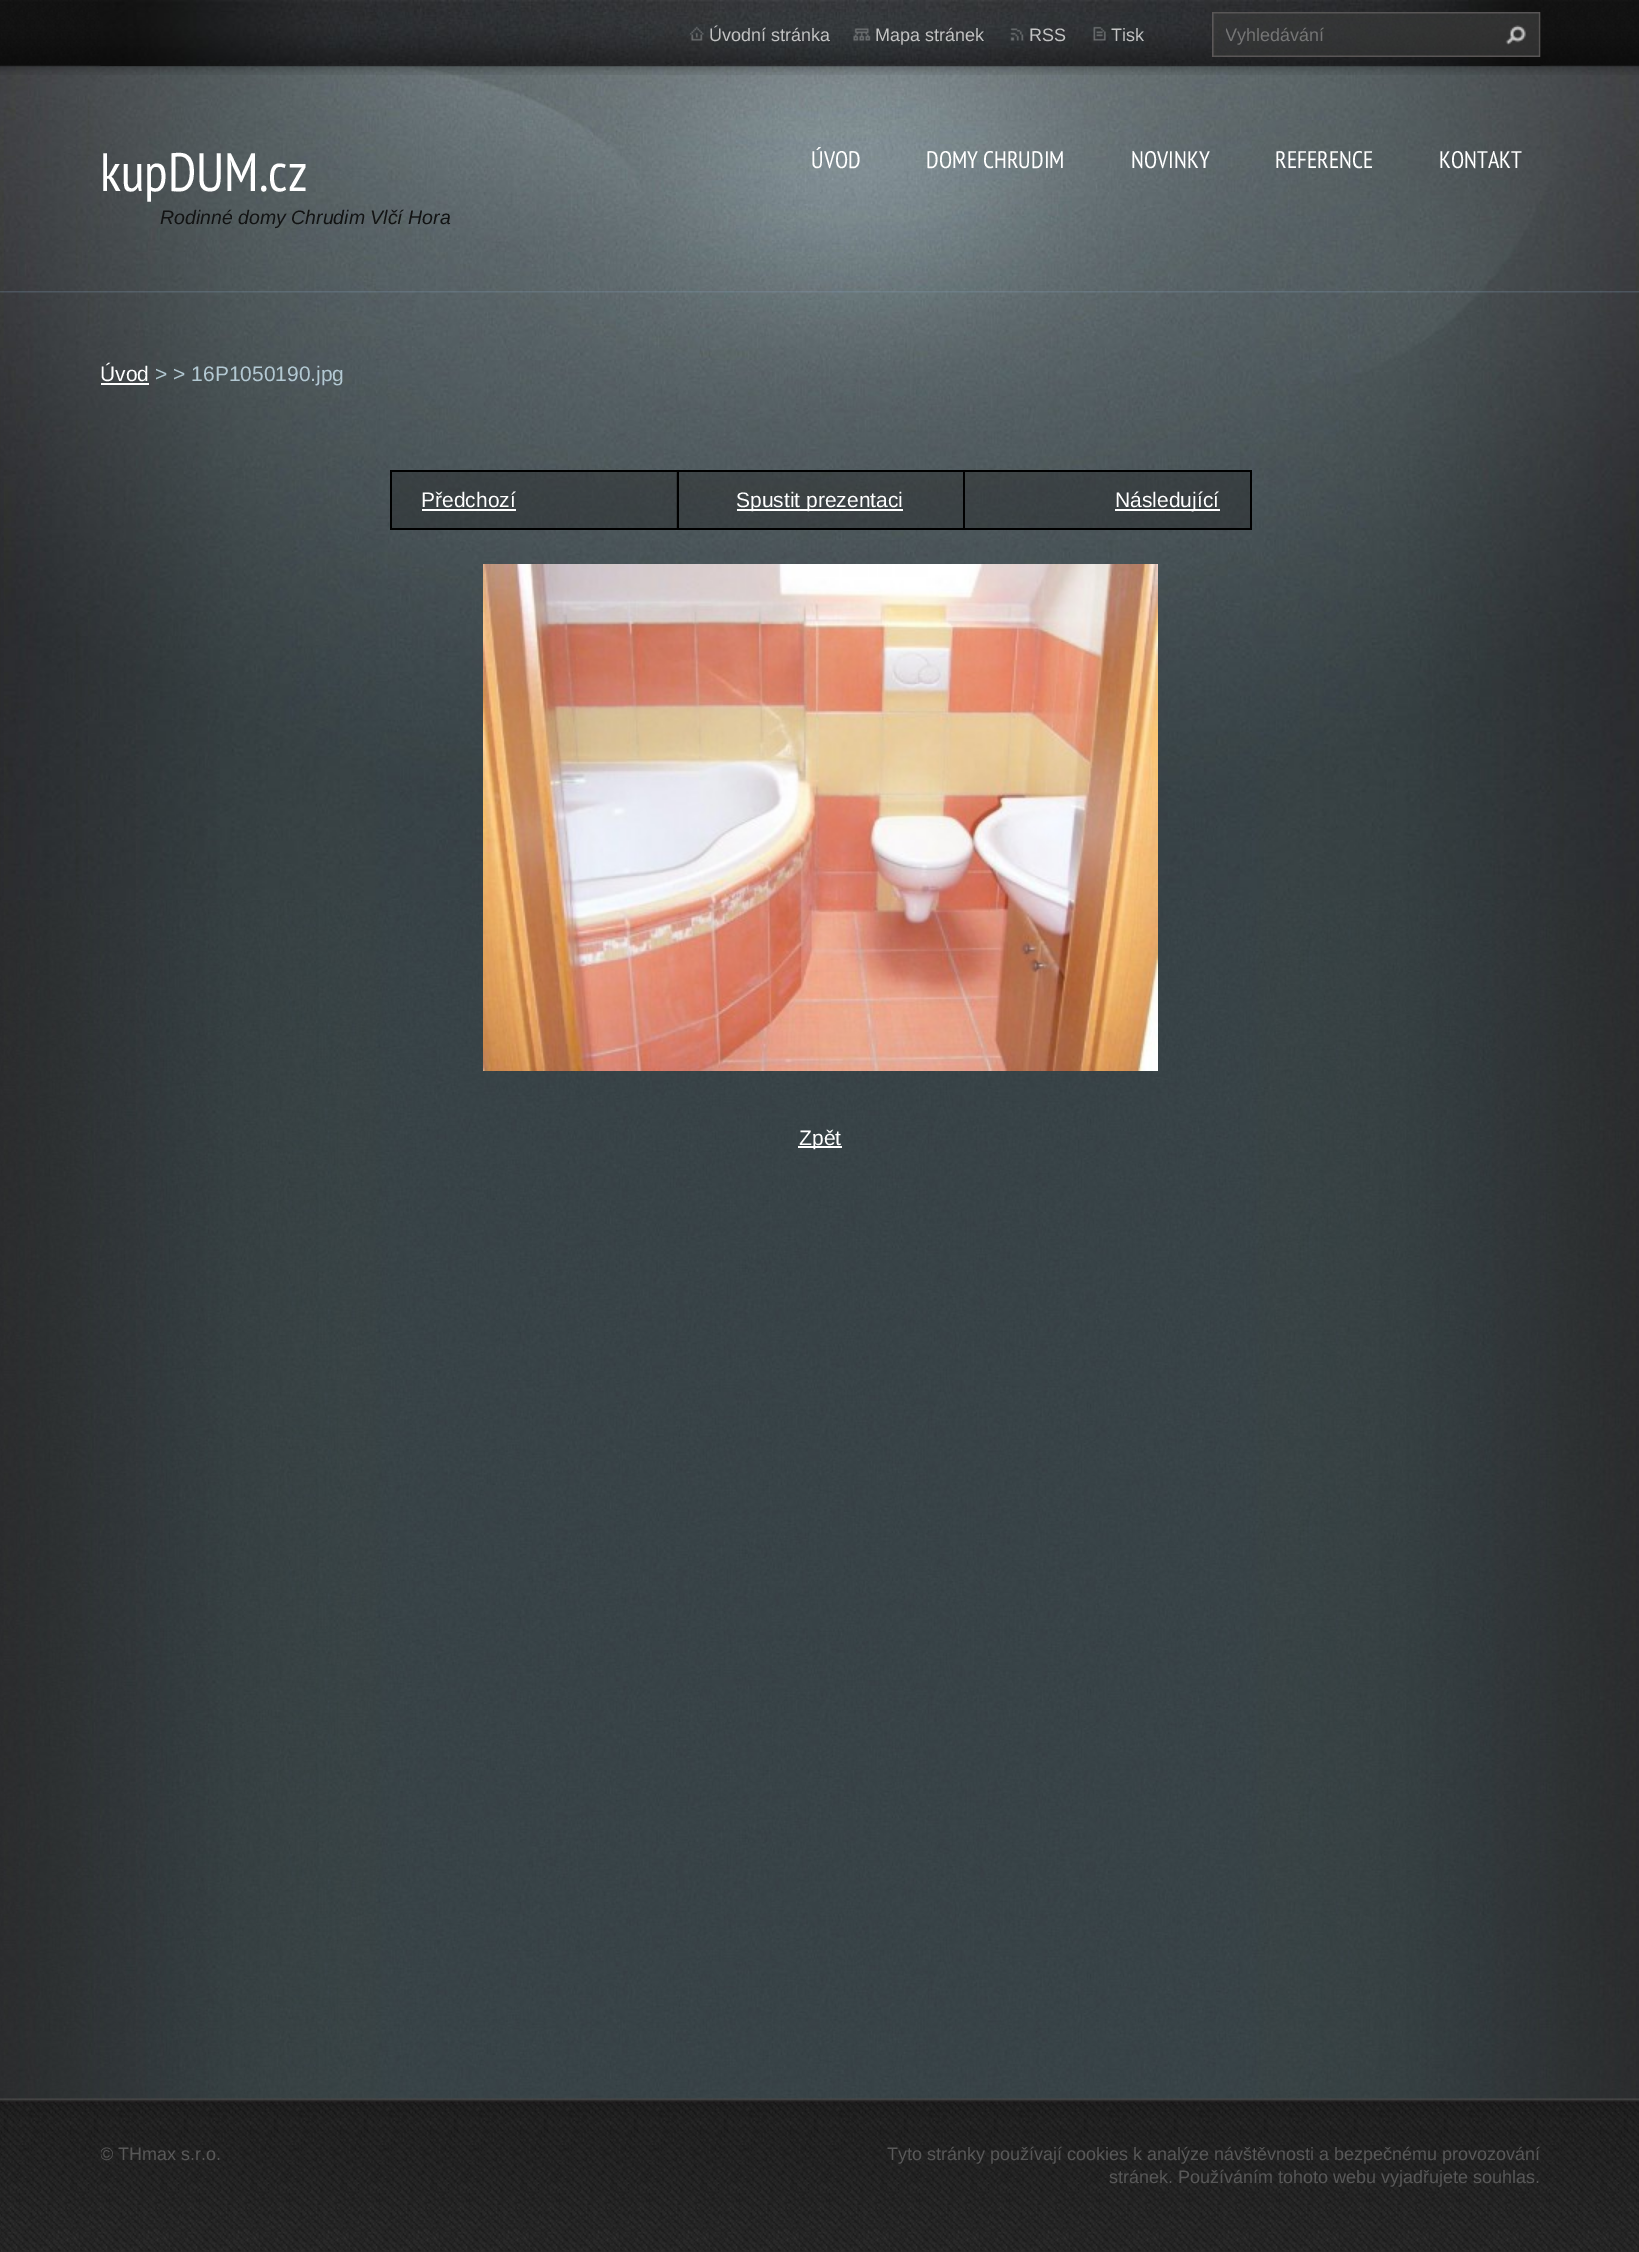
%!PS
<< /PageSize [1639 2252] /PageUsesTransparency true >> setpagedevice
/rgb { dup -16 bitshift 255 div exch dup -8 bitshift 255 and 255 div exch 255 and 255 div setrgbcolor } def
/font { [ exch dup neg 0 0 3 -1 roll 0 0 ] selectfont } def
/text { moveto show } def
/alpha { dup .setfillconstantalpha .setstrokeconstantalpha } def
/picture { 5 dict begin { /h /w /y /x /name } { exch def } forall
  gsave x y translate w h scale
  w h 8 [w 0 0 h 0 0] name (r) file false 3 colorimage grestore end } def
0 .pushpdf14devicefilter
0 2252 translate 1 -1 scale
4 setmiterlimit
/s1 { /LiberationSans-Regular 18 font 16#C3C3C3 rgb } def
/s2 { /LiberationSans-Regular 18 font 16#757575 rgb } def
/s3 { /PTSansNarrow-Regular 54 font 16#FFFFFF rgb } def
/s4 { /LiberationSans-Italic 19.5 font 16#121313 rgb } def
/s5 { /PTSansNarrow-Regular 24 font 16#FFFFFF rgb } def
/s6 { /LiberationSans-Regular 21 font 16#FFFFFF rgb } def
/s7 { /LiberationSans-Regular 21 font 16#B3C9D3 rgb } def
/s8 { /LiberationSans-Regular 18 font 16#585858 rgb } def
16#FFFFFF rgb
0 0 1639 2252 rectfill
(pic1.raw) 0 900 1639 1199 picture
(pic2.raw) 0 65 1639 835 picture
(pic3.raw) 0 291 1639 2 picture
(pic4.raw) 0 0 1639 75 picture
(pic5.raw) 100 0 1441 66 picture
(pic6.raw) 689 26 15 15 picture
s1
(Úvodní stránka) 709 41 text
(pic7.raw) 853 28 18 13 picture
(Mapa stránek) 875 41 text
(pic8.raw) 1010 28 14 13 picture
(RSS) 1029 41 text
(pic9.raw) 1093 26 13 15 picture
(Tisk) 1111 41 text
(pic10.raw) 1212 12 329 45 picture
gsave
1226 24 255 21 rectclip
s2
(Vyhledávání) 1225 41 text
grestore
(pic11.raw) 1505 25 21 20 picture
s3
(kupDUM.cz) 100 191 text
s4
(Rodinné domy Chrudim Vlčí Hora) 160 224 text
s5
(ÚVOD) 811 168 text
(DOMY CHRUDIM) 926 168 text
(NOVINKY) 1131 168 text
(REFERENCE) 1275 168 text
(KONTAKT) 1439 168 text
s6
(Úvod) 100 381 text
101 383 48 2 rectfill
s7
(> > 16P1050190.jpg) 155 381 text
16#000000 rgb
390 470 861 2 rectfill
390 470 2 60 rectfill
0.36 alpha
16#1C1C1C rgb
392 472 285 56 rectfill
676 472 287 56 rectfill
1 alpha
16#000000 rgb
1250 470 2 60 rectfill
963 528 288 2 rectfill
963 470 2 60 rectfill
677 528 288 2 rectfill
677 470 2 60 rectfill
390 528 288 2 rectfill
s6
(Předchozí) 421 507 text
422 509 94 2 rectfill
737 509 166 2 rectfill
(Spustit prezentaci) 736 507 text
0.36 alpha
16#1C1C1C rgb
965 472 285 56 rectfill
1 alpha
16#FFFFFF rgb
1115 509 105 2 rectfill
(Následující) 1115 507 text
(pic12.raw) 483 564 675 507 picture
798 1146 44 2 rectfill
(Zpět) 799 1145 text
(pic13.raw) 0 2098 1639 154 picture
gsave
101 2099 720 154 rectclip
s8
(© THmax s.r.o.) 100 2160 text
grestore
s8
(Tyto stránky používají cookies k analýze návštěvnosti a bezpečnému provozování) 887 2160 text
(stránek. Používáním tohoto webu vyjadřujete souhlas.) 1109 2183 text
.poppdf14devicefilter showpage
